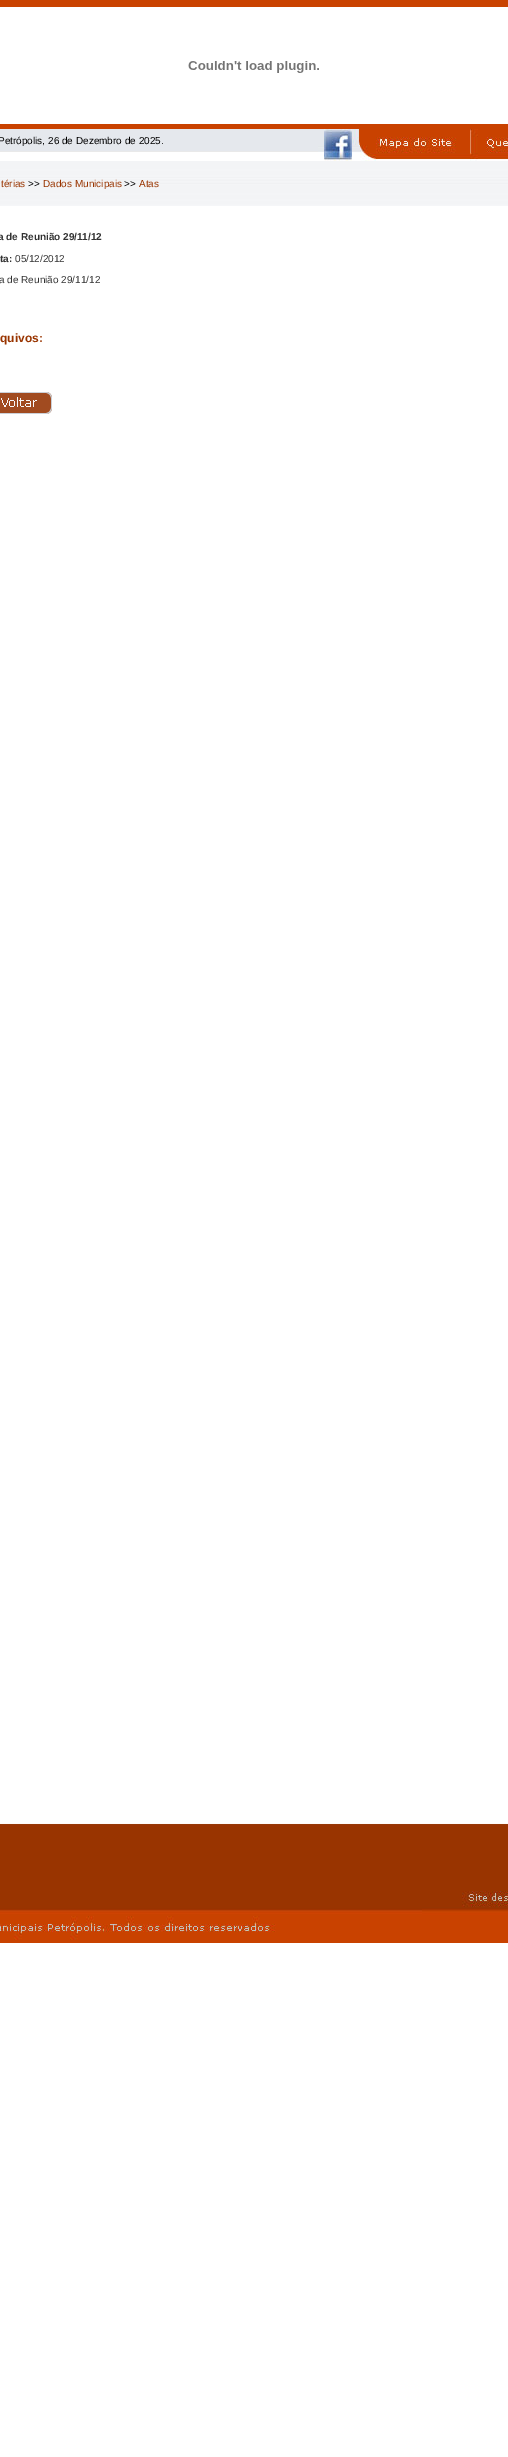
%!PS
<< /PageSize [508 2457] >> setpagedevice
/rgb { dup -16 bitshift 255 div exch dup -8 bitshift 255 and 255 div exch 255 and 255 div setrgbcolor } def
/font { [ exch dup neg 0 0 3 -1 roll 0 0 ] selectfont } def
/text { moveto show } def
/picture { 5 dict begin { /h /w /y /x /name } { exch def } forall
  gsave x y translate w h scale
  w h 8 [w 0 0 h 0 0] name (r) file false 3 colorimage grestore end } def
0 2457 translate 1 -1 scale
4 setmiterlimit
/s1 { /LiberationSans-Regular 10 font 16#000000 rgb } def
/s2 { /LiberationSans-Regular 10 font 16#993400 rgb } def
/s3 { /LiberationSans-Bold 10 font 16#333333 rgb } def
/s4 { /LiberationSans-Regular 10 font 16#333333 rgb } def
/s5 { /LiberationSans-Bold 12 font 16#993400 rgb } def
16#FFFFFF rgb
0 0 508 2457 rectfill
16#C94200 rgb
0 0 508 7 rectfill
(pic1.raw) 188 61 131 12 picture
0 124 508 5 rectfill
16#E5E8ED rgb
0 129 318 22 rectfill
s1
(Petrópolis, 26 de Dezembro de 2025.) -2 144 text
16#E9E9E9 rgb
0 151 318 1 rectfill
(pic2.raw) 318 129 6 23 picture
(pic3.raw) 324 129 28 32 picture
(pic4.raw) 352 129 118 32 picture
(pic5.raw) 470 129 38 32 picture
(pic6.raw) 0 161 508 45 picture
s2
(térias) 1 187 text
s1
(>>) 28 187 text
s2
(Dados Municipais) 43 187 text
s1
(>>) 124 187 text
s2
(Atas) 139 187 text
s3
(a de Reunião 29/11/12) -2 240 text
(ta:) 0 262 text
s4
(05/12/2012) 15 262 text
(a de Reunião 29/11/12) -1 283 text
s5
(quivos:) 0 342 text
(pic7.raw) 0 392 52 22 picture
(pic8.raw) 0 1823 508 4 picture
0 1827 422 81 rectfill
(pic9.raw) 0 1908 236 35 picture
(pic10.raw) 236 1908 186 35 picture
422 1827 86 16 rectfill
(pic11.raw) 422 1843 86 100 picture
showpage
